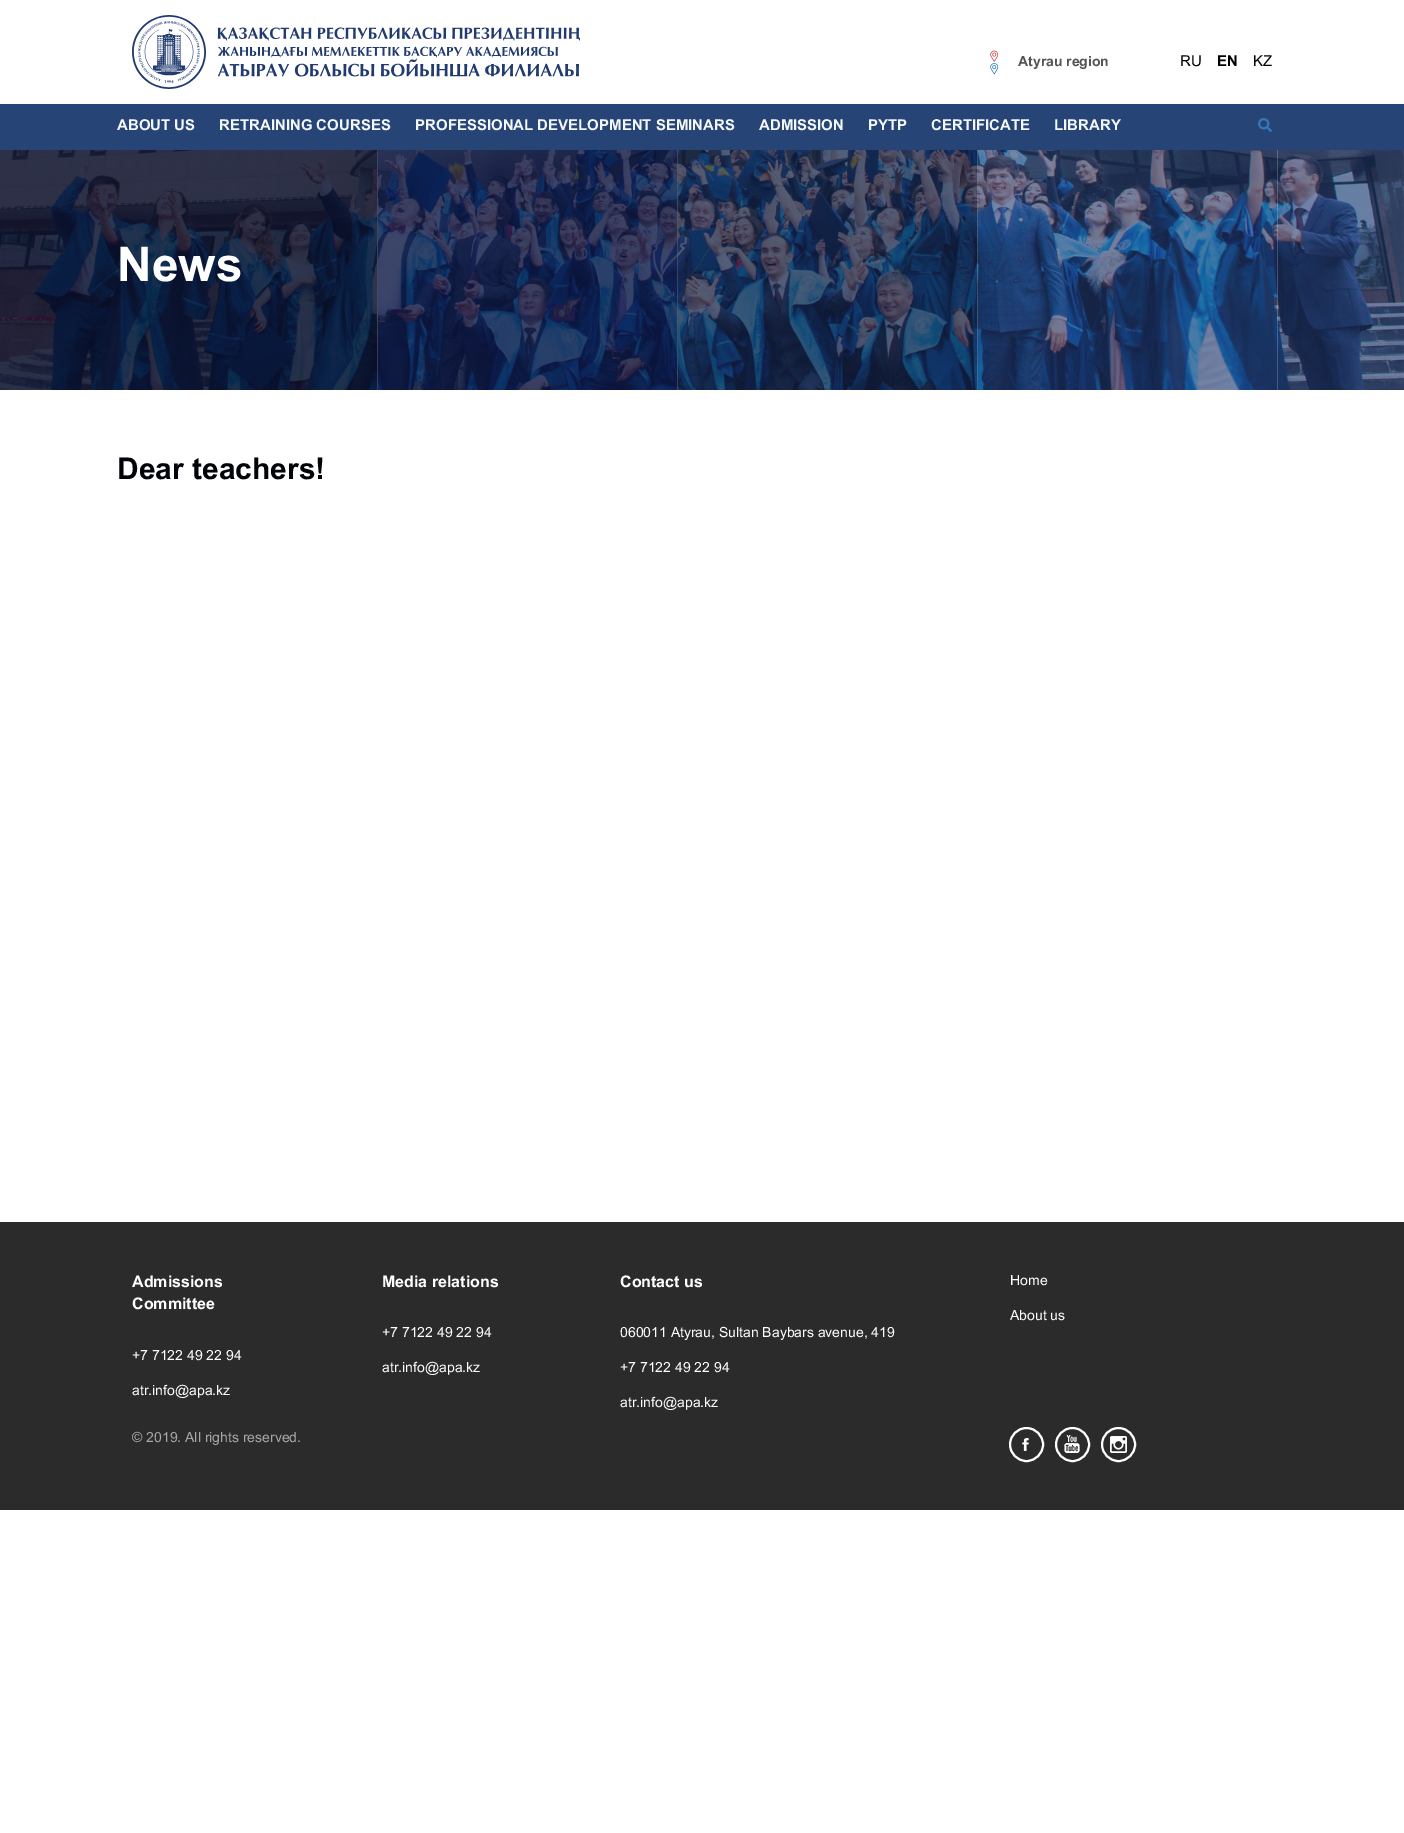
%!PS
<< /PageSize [1404 1833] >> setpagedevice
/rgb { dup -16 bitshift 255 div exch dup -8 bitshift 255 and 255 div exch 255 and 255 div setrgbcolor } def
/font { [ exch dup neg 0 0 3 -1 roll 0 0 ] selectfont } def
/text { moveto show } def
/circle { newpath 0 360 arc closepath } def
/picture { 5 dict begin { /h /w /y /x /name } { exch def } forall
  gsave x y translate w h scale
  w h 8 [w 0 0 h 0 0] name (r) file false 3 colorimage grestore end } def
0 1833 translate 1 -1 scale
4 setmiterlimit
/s1 { /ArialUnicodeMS-Bold 14 font 16#555555 rgb } def
/s2 { /ArialUnicodeMS-Regular 15 font 16#000000 rgb } def
/s3 { /ArialUnicodeMS-Bold 15 font 16#000000 rgb } def
/s4 { /ArialUnicodeMS-Bold 15 font 16#F3F7FA rgb } def
/s5 { /ArialUnicodeMS-Bold 48 font 16#FFFFFF rgb } def
/s6 { /ArialUnicodeMS-Bold 30 font 16#010308 rgb } def
/s7 { /ArialUnicodeMS-Bold 16 font 16#FFFFFF rgb } def
/s8 { /ArialUnicodeMS-Regular 14 font 16#FFFFFF rgb } def
/s9 { /ArialUnicodeMS-Regular 14 font 16#A7A7A7 rgb } def
16#FFFFFF rgb
0 0 1404 1833 rectfill
(pic1.raw) 132 15 448 74 picture
(pic2.raw) 990 50 9 25 picture
s1
(Atyrau region) 1018 66 text
s2
(RU) 1180 66 text
s3
(EN) 1217 66 text
s2
(KZ) 1253 66 text
16#264476 rgb
0 104 1404 46 rectfill
s4
(ABOUT US) 117 130 text
(RETRAINING COURSES) 219 130 text
(PROFESSIONAL DEVELOPMENT SEMINARS) 415 130 text
(ADMISSION) 759 130 text
(PYTP) 868 130 text
(CERTIFICATE) 931 130 text
(LIBRARY) 1054 130 text
(pic3.raw) 1258 118 14 14 picture
(pic4.raw) 0 150 1404 240 picture
(pic5.raw) 0 150 1278 240 picture
s5
(News) 117 281 text
s6
(Dear teachers!) 117 479 text
16#2B2B2B rgb
0 1222 1404 288 rectfill
s7
(Admissions) 132 1287 text
(Committee) 132 1309 text
s8
(+7 7122 49 22 94) 132 1360 text
(atr.info@apa.kz) 132 1395 text
s7
(Media relations) 382 1287 text
s8
(+7 7122 49 22 94) 382 1337 text
(atr.info@apa.kz) 382 1372 text
s7
(Contact us) 620 1287 text
s8
(060011 Atyrau, Sultan Baybars avenue, 419) 620 1337 text
(+7 7122 49 22 94) 620 1372 text
(atr.info@apa.kz) 620 1407 text
(Home) 1010 1285 text
(About us) 1010 1320 text
s9
(© 2019. All rights reserved.) 132 1442 text
16#FFFFFF rgb
2 setlinewidth
1026.5 1444.5 16.5 circle stroke
(pic6.raw) 1022 1438 7 13 picture
1072.5 1444.5 16.5 circle stroke
(pic7.raw) 1064 1435 16 18 picture
1118.5 1444.5 16.5 circle stroke
(pic8.raw) 1110 1436 17 17 picture
showpage
